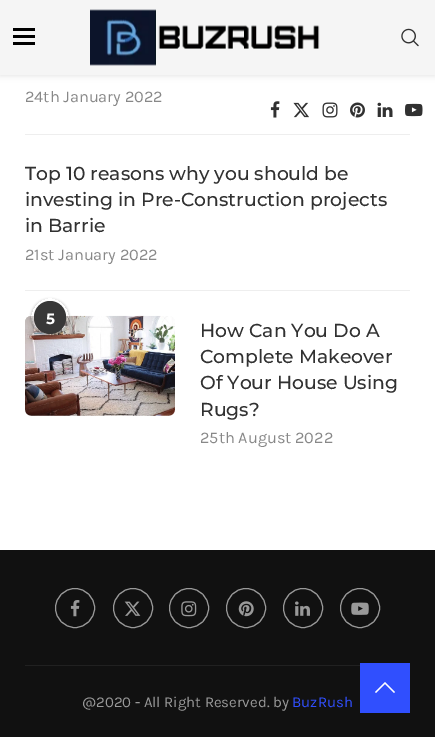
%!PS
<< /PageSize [435 737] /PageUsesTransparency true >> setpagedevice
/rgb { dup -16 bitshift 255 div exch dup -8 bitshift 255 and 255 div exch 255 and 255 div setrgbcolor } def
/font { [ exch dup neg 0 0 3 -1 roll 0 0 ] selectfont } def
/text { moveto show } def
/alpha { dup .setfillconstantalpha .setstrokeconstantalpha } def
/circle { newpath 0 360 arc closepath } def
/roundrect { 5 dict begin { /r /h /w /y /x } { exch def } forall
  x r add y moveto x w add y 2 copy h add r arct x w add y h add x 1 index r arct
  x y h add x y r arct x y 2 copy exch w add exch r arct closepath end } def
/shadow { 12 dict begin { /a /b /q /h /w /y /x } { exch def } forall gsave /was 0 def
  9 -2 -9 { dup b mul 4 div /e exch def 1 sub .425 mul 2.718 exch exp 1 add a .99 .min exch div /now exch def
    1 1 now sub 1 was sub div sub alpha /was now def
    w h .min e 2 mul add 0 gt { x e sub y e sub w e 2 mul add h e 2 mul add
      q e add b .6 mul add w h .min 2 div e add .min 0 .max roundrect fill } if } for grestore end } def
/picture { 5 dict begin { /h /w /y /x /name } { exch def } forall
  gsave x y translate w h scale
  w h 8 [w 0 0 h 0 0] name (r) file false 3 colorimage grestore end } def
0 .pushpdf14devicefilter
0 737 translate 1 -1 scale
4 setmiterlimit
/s1 { /Karla-Regular 16.25 font 16#888888 rgb } def
/s2 { /Montserrat-Medium 18.75 font 16#313131 rgb } def
/s3 { /Montserrat-Bold 15 font 16#FFFFFF rgb } def
/s4 { /Karla-Regular 15 font 16#999999 rgb } def
/s5 { /Karla-Regular 15 font 16#304FFE rgb } def
16#FFFFFF rgb
0 0 435 737 rectfill
16#BEBEBE rgb
0 1 435 75 0 3 0.46 shadow
16#F5F5F5 rgb
0 0 435 75 rectfill
16#000000 rgb
13 28 22 3 rectfill
13 35 22 3 rectfill
13 42 22 3 rectfill
(pic1.raw) 90 9 230 57 picture
(pic2.raw) 401 28 18 19 picture
(pic3.raw) 270 101 10 17 picture
(pic4.raw) 293 102 16 16 picture
(pic5.raw) 322 102 16 16 picture
(pic6.raw) 350 102 15 16 picture
(pic7.raw) 377 102 16 15 picture
(pic8.raw) 405 103 18 14 picture
16#EEEEEE rgb
25 134 385 1 rectfill
s1
(24th January 2022) 25 102 text
16#EEEEEE rgb
25 290 385 1 rectfill
s2
(Top 10 reasons why you should be) 25 180 text
(investing in Pre-Construction projects) 25 206 text
(in Barrie) 25 232 text
s1
(21st January 2022) 25 260 text
16#F5F5F5 rgb
25 316 150 100 6 roundrect fill
(pic9.raw) 25 315 150 101 picture
gsave
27 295 moveto 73 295 lineto 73 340 lineto 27 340 lineto closepath 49.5 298 moveto 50.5 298 lineto 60.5 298 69 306.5 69 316.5 curveto 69 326.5 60.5 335 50.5 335 curveto 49.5 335 lineto 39.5 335 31 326.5 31 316.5 curveto 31 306.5 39.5 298 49.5 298 curveto closepath eoclip newpath
16#000000 rgb
31 299 38 37 18.5 1 0.25 shadow
grestore
0.3 alpha
16#FFFFFF rgb
31 298 38 37 18.5 roundrect fill
1 alpha
16#383838 rgb
34 301 32 33 16 roundrect fill
s3
(5) 46 324 text
s2
(How Can You Do A) 200 337 text
(Complete Makeover) 200 363 text
(Of Your House Using) 200 389 text
(Rugs?) 200 416 text
s1
(25th August 2022) 200 443 text
16#111111 rgb
0 550 435 187 rectfill
16#212121 rgb
25 665 335 1 rectfill
16#999999 rgb
75 608 19.5 circle stroke
(pic10.raw) 70 600 10 17 picture
133 608 19.5 circle stroke
(pic11.raw) 124 601 17 15 picture
189 608 19.5 circle stroke
(pic12.raw) 181 601 16 16 picture
246 608 19.5 circle stroke
(pic13.raw) 238 601 16 16 picture
303 608 19.5 circle stroke
(pic14.raw) 295 601 15 15 picture
360 608 19.5 circle stroke
(pic15.raw) 351 602 18 13 picture
s4
(@2020 - All Right Reserved. by) 82 707 text
s5
(BuzRush) 292 707 text
360 663 50 50 rectfill
16#FFFFFF rgb
385 682 moveto 375 692 lineto 376 693 lineto 385 684 lineto 394 693 lineto 395 692 lineto closepath fill
.poppdf14devicefilter showpage
